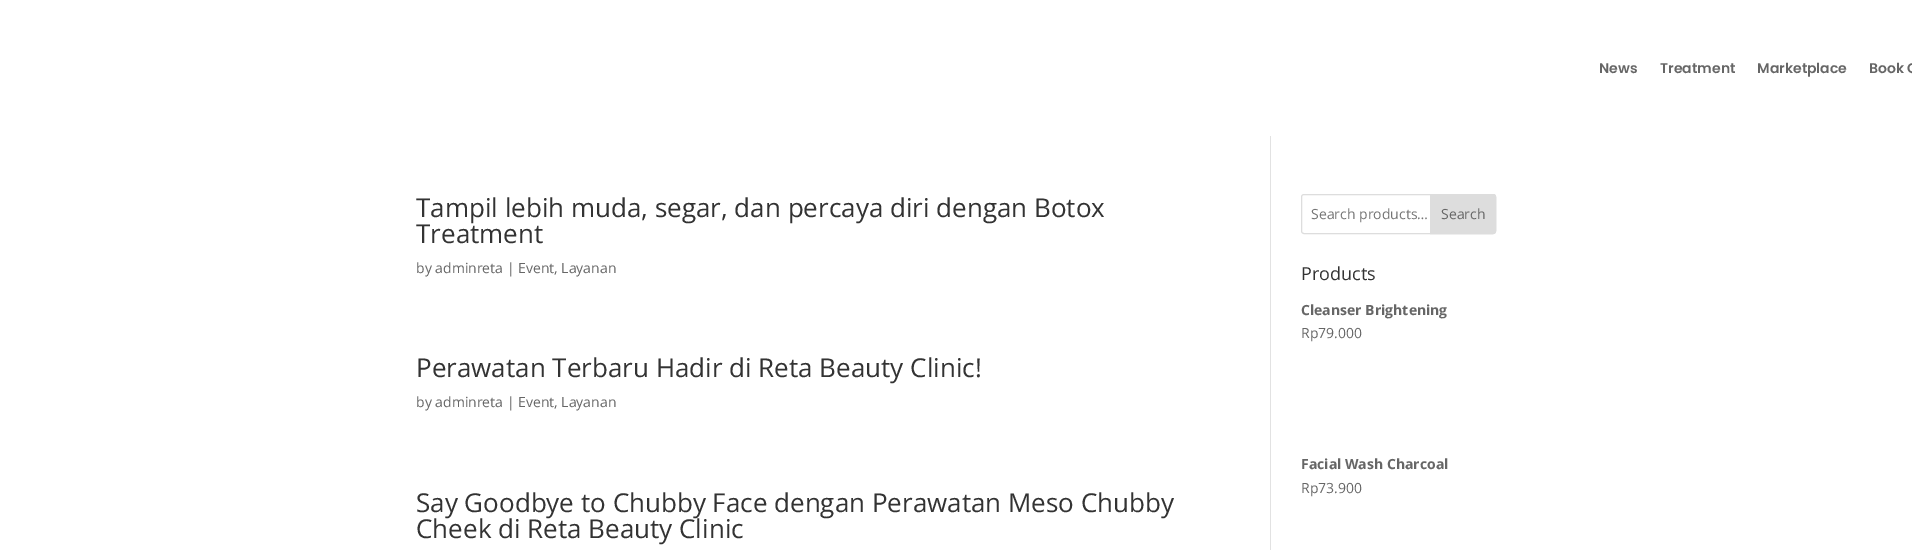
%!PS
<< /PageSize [1912 550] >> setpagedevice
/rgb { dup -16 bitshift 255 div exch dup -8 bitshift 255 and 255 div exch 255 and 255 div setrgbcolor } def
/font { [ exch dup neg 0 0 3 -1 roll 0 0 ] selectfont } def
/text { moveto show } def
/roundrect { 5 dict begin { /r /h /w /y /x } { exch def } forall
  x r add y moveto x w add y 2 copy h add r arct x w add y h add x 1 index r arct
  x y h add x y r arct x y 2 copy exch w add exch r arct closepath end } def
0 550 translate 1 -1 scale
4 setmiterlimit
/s1 { /Poppins-SemiBold 14 font 16#666666 rgb } def
/s2 { /OpenSans-Regular 26 font 16#333333 rgb } def
/s3 { /OpenSans-Regular 14 font 16#666666 rgb } def
/s4 { /OpenSans-Regular 14 font 16#757575 rgb } def
/s5 { /OpenSans-Regular 18 font 16#333333 rgb } def
/s6 { /OpenSans-Bold 14 font 16#666666 rgb } def
16#FFFFFF rgb
0 0 1912 550 rectfill
s1
(News) 1599 73 text
(Treatment) 1660 73 text
(Marketplace) 1757 73 text
(Book C) 1869 73 text
16#E2E2E2 rgb
1270 136 1 414 rectfill
s2
(Tampil lebih muda, segar, dan percaya diri dengan Botox) 416 217 text
(Treatment) 416 243 text
s3
(by adminreta | Event, Layanan) 416 273 text
s2
(Perawatan Terbaru Hadir di Reta Beauty Clinic!) 416 377 text
s3
(by adminreta | Event, Layanan) 416 407 text
s2
(Say Goodbye to Chubby Face dengan Perawatan Meso Chubby) 416 512 text
(Cheek di Reta Beauty Clinic) 416 538 text
16#DDDDDD rgb
1301.5 194.5 194 39 2.5 roundrect stroke
s4
(Search products…) 1311 219 text
16#DDDDDD rgb
1430.5 194.5 moveto 1493 194.5 lineto 1494.5 194.5 1495.5 195.5 1495.5 197 curveto 1495.5 231 lineto 1495.5 232.5 1494.5 233.5 1493 233.5 curveto 1430.5 233.5 lineto closepath gsave fill grestore
stroke
s3
(Search) 1441 219 text
s5
(Products) 1301 280 text
s6
(Cleanser Brightening) 1301 315 text
s3
(Rp79.000) 1301 338 text
s6
(Facial Wash Charcoal) 1301 469 text
s3
(Rp73.900) 1301 493 text
showpage
